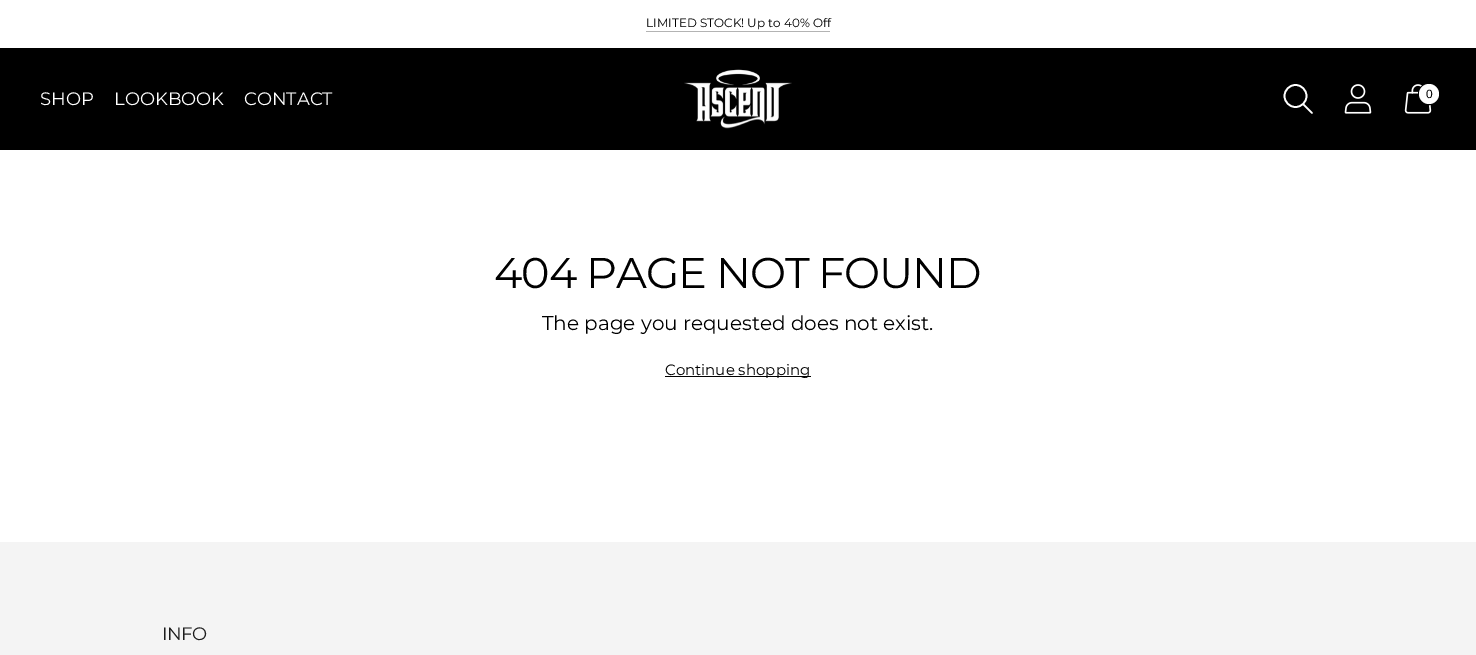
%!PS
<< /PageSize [1476 655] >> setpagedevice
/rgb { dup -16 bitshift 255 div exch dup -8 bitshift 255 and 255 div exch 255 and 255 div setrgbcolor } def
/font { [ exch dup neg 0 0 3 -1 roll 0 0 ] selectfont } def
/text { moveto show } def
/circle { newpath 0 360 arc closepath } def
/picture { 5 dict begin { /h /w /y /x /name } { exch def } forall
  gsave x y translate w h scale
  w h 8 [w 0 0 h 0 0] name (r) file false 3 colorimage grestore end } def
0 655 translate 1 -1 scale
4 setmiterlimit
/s1 { /Montserrat-Regular 12 font 16#000000 rgb } def
/s2 { /Montserrat-Regular 18 font 16#FFFFFF rgb } def
/s3 { /LiberationSans-Regular 12 font 16#000000 rgb } def
/s4 { /Montserrat-Regular 20 font 16#000000 rgb } def
/s5 { /Montserrat-Regular 15 font 16#000000 rgb } def
16#FFFFFF rgb
0 0 1476 655 rectfill
s1
(LIMITED STOCK! Up to 40% Off) 646 27 text
16#B3B3B3 rgb
646 31 184 1 rectfill
16#000000 rgb
0 48 1476 102 rectfill
s2
(SHOP) 40 105 text
(LOOKBOOK) 114 105 text
(CONTACT) 244 105 text
(pic1.raw) 684 69 108 60 picture
1.7 setlinewidth
1295.5 96 11 circle stroke
1 setlinecap
1 setlinejoin
1303.5 104.5 moveto 1312 113 lineto stroke
(pic2.raw) 1344 84 28 30 picture
(pic3.raw) 1404 84 28 30 picture
16#000000 rgb
1 setlinewidth
0 setlinecap
0 setlinejoin
1429 94 10.5 circle stroke
16#FFFFFF rgb
1429 94 10 circle fill
s3
(0) 1426 98 text
/Montserrat-Regular 43 font
494 288 moveto -1.1 0 (404 PAGE NOT FOUND) ashow
s4
(The page you requested does not exist.) 542 330 text
665 376 146 1 rectfill
s5
(Continue shopping) 665 375 text
16#F4F4F4 rgb
0 542 1476 113 rectfill
/Montserrat-Regular 18 font
16#1D1D1D rgb
162 640 moveto -0.5 0 (INFO) ashow
showpage
